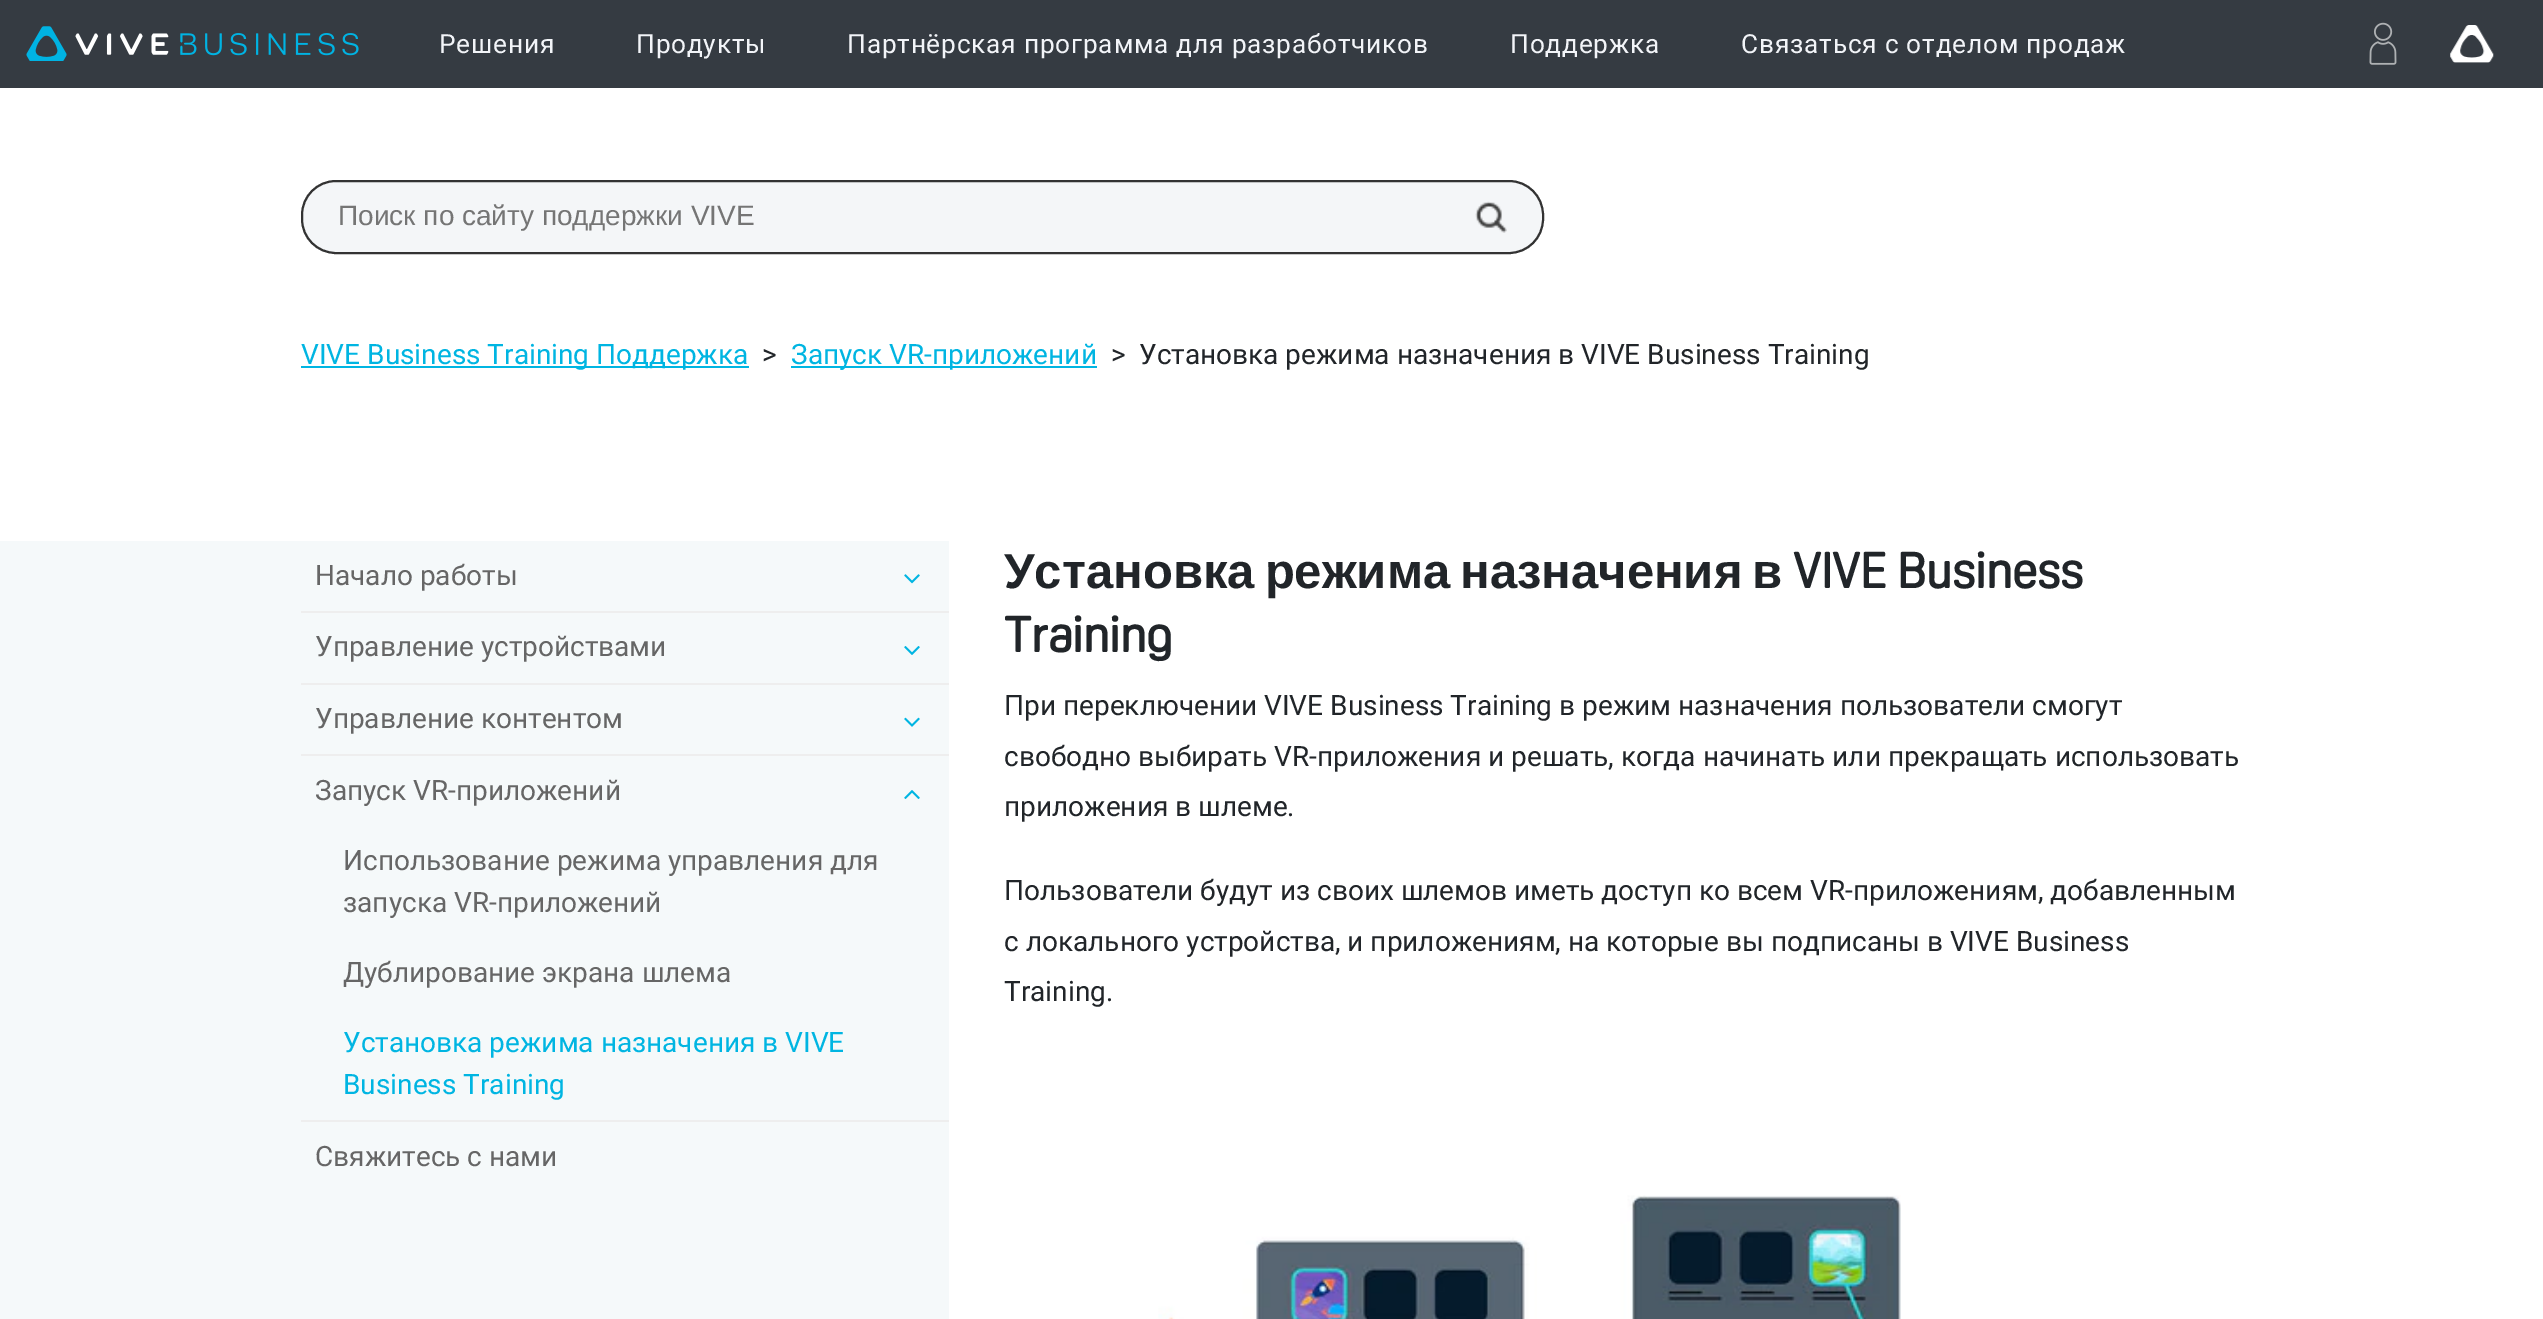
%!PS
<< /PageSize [2543 1319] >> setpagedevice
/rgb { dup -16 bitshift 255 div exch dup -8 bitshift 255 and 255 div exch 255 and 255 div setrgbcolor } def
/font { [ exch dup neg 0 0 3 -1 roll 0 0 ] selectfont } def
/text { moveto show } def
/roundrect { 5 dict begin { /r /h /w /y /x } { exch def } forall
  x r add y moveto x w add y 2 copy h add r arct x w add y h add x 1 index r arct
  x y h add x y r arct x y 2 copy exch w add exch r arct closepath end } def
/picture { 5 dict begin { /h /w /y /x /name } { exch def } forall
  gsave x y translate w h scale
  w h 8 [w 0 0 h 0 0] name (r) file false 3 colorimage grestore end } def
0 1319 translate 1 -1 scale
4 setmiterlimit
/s1 { /LiberationSans-Regular 28 font 16#757575 rgb } def
/s2 { /Roboto-Regular 28 font 16#00B5E2 rgb } def
/s3 { /Roboto-Regular 28 font 16#212529 rgb } def
/s4 { /Roboto-Regular 28 font 16#666666 rgb } def
/s5 { /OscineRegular-Bold 49 font 16#212529 rgb } def
16#FFFFFF rgb
0 0 2543 1319 rectfill
16#353B42 rgb
0 0 2543 88 rectfill
(pic1.raw) 26 26 333 35 picture
/Roboto-Regular 26.25 font
16#F2F4F8 rgb
439 53 moveto 0.8 0 (Решения) ashow
636 53 moveto 0.8 0 (Продукты) ashow
847 53 moveto 0.8 0 (Партнёрская программа для разработчиков) ashow
1510 53 moveto 0.8 0 (Поддержка) ashow
1741 53 moveto 0.8 0 (Связаться с отделом продаж) ashow
(pic2.raw) 2369 22 28 43 picture
(pic3.raw) 2450 25 44 38 picture
16#F4F6F8 rgb
302 181 1241 72 34 roundrect gsave fill grestore
16#333333 rgb
2 setlinewidth
stroke
s1
(Поиск по сайту поддержки VIVE) 338 225 text
(pic4.raw) 1475 201 32 32 picture
16#00B5E2 rgb
301 366 448 2 rectfill
s2
(VIVE Business Training Поддержка) 301 364 text
s3
(>) 762 364 text
16#00B5E2 rgb
791 366 306 2 rectfill
(Запуск VR-приложений) 791 364 text
s3
(>) 1111 364 text
(Установка режима назначения в VIVE Business Training) 1139 364 text
16#F5F9FA rgb
0 541 949 778 rectfill
16#EEEEEE rgb
301 611 648 2 rectfill
s4
(Начало работы) 315 585 text
(pic5.raw) 904 574 16 10 picture
16#EEEEEE rgb
301 683 648 2 rectfill
s4
(Управление устройствами) 315 656 text
(pic6.raw) 904 646 16 9 picture
16#EEEEEE rgb
301 754 648 2 rectfill
s4
(Управление контентом) 315 728 text
(pic7.raw) 904 717 16 10 picture
16#EEEEEE rgb
301 1120 648 2 rectfill
s4
(Запуск VR-приложений) 315 800 text
(pic8.raw) 904 790 16 9 picture
(Использование режима управления для) 343 870 text
(запуска VR-приложений) 343 912 text
(Дублирование экрана шлема) 343 982 text
s2
(Установка режима назначения в VIVE) 343 1052 text
(Business Training) 343 1094 text
s4
(Свяжитесь с нами) 315 1166 text
/LiberationSans-Bold 49 font
16#212529 rgb
1004 588 moveto -3.5 0 32 (Установка режима назначения в) widthshow
s5
(VIVE Business) 1793 588 text
(Training) 1004 652 text
s3
(При переключении VIVE Business Training в режим назначения пользователи смогут) 1004 715 text
(свободно выбирать VR-приложения и решать, когда начинать или прекращать использовать) 1004 766 text
(приложения в шлеме.) 1004 816 text
(Пользователи будут из своих шлемов иметь доступ ко всем VR-приложениям, добавленным) 1004 900 text
(с локального устройства, и приложениям, на которые вы подписаны в VIVE Business) 1004 951 text
(Training.) 1004 1001 text
(pic9.raw) 1158 1195 743 124 picture
showpage
